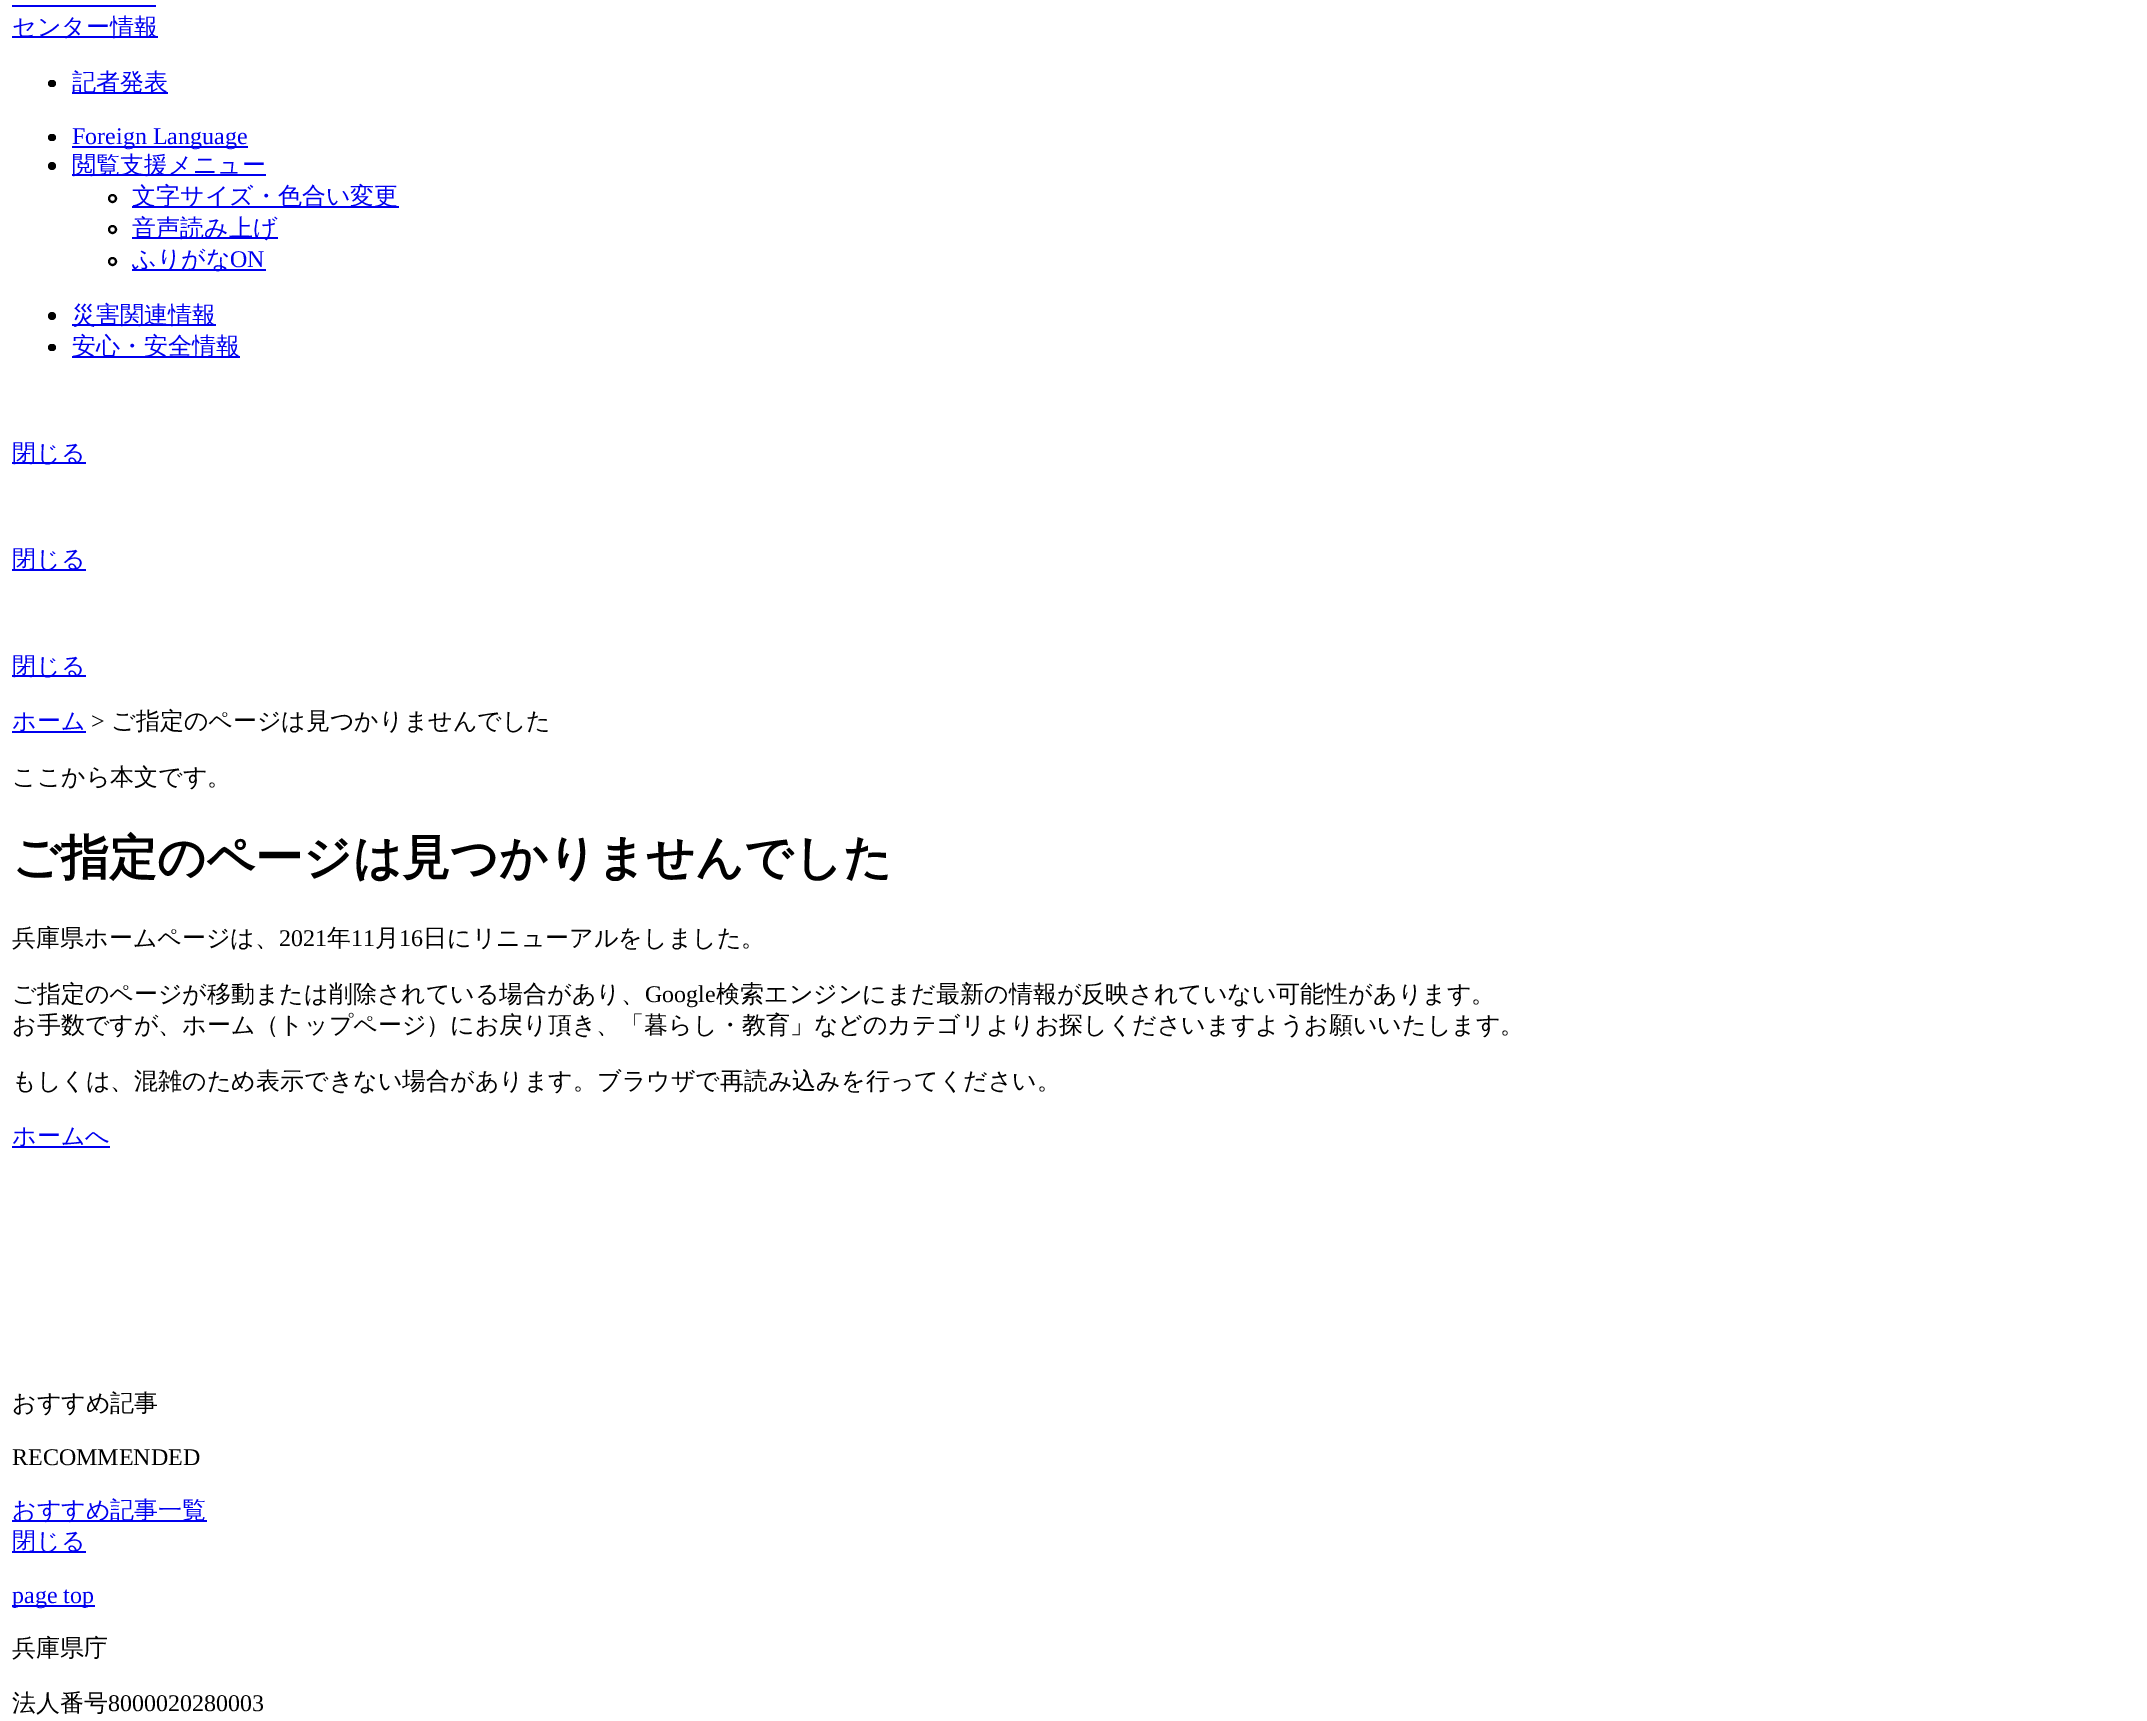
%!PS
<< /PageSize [2147 1721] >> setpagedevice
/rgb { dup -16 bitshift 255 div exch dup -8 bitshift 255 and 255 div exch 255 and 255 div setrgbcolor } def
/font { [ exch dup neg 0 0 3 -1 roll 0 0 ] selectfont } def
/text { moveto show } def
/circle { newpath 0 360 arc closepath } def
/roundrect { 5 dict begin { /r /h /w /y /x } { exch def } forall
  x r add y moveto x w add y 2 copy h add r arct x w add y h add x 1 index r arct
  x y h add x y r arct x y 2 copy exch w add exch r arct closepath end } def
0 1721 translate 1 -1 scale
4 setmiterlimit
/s1 { /WenQuanYiZenHei-Medium 24 font 16#0000EE rgb } def
/s2 { /LiberationSerif-Regular 24 font 16#0000EE rgb } def
/s3 { /LiberationSerif-Regular 24 font 16#000000 rgb } def
/s4 { /WenQuanYiZenHei-Medium 24 font 16#000000 rgb } def
/s5 { /WenQuanYiZenHei-Bold 48 font 16#000000 rgb } def
16#FFFFFF rgb
0 0 2147 1721 rectfill
16#0000EE rgb
12 36 146 2 rectfill
s1
(センター情報) 12 35 text
12 5 144 2 rectfill
16#000000 rgb
48 80 8 7 3.5 roundrect fill
16#0000EE rgb
72 92 96 2 rectfill
(記者発表) 72 90 text
16#000000 rgb
48 134 8 7 3.5 roundrect fill
16#0000EE rgb
72 146 176 2 rectfill
s2
(Foreign Language) 72 144 text
16#000000 rgb
52 166 4 circle fill
16#0000EE rgb
72 174 194 2 rectfill
s1
(閲覧支援メニュー) 72 173 text
16#000000 rgb
2 setlinewidth
112.5 198.5 3.5 circle stroke
16#0000EE rgb
132 206 267 2 rectfill
(文字サイズ・色合い変更) 132 204 text
16#000000 rgb
112.5 229.5 3.5 circle stroke
16#0000EE rgb
132 237 146 2 rectfill
(音声読み上げ) 132 236 text
16#000000 rgb
112.5 261.5 3.5 circle stroke
16#0000EE rgb
132 269 134 2 rectfill
(ふりがな) 132 267 text
s2
(ON) 230 267 text
16#000000 rgb
52 316 4 circle fill
16#0000EE rgb
72 324 144 2 rectfill
s1
(災害関連情報) 72 323 text
16#000000 rgb
48 344 8 7 3.5 roundrect fill
16#0000EE rgb
72 356 168 2 rectfill
(安心・安全情報) 72 354 text
12 462 74 2 rectfill
(閉じる) 12 461 text
12 569 74 2 rectfill
(閉じる) 12 567 text
12 675 74 2 rectfill
(閉じる) 12 674 text
12 731 74 2 rectfill
(ホーム) 12 729 text
s3
(>) 91 729 text
s4
(ご指定のページは見つかりませんでした) 111 729 text
(ここから本文です。) 12 785 text
s5
(ご指定のページは見つかりませんでした) 12 874 text
s4
(兵庫県ホームページは、) 12 946 text
s3
(2021) 279 946 text
s4
(年) 327 946 text
s3
(11) 351 946 text
s4
(月) 375 946 text
s3
(16) 399 946 text
s4
(日にリニューアルをしました。) 423 946 text
(ご指定のページが移動または削除されている場合があり、) 12 1002 text
s3
(Google) 645 1002 text
s4
(検索エンジンにまだ最新の情報が反映されていない可能性があります。) 716 1002 text
(お手数ですが、ホーム（トップページ）にお戻り頂き、「暮らし・教育」などのカテゴリよりお探しくださいますようお願いいたします。) 12 1033 text
(もしくは、混雑のため表示できない場合があります。ブラウザで再読み込みを行ってください。) 12 1089 text
16#0000EE rgb
12 1146 98 2 rectfill
(ホームへ) 12 1144 text
s4
(おすすめ記事) 12 1411 text
s3
(RECOMMENDED) 12 1465 text
16#0000EE rgb
12 1520 195 2 rectfill
s1
(おすすめ記事一覧) 12 1518 text
12 1551 74 2 rectfill
(閉じる) 12 1549 text
12 1605 83 2 rectfill
s2
(page top) 12 1603 text
s4
(兵庫県庁) 12 1656 text
(法人番号) 12 1711 text
s3
(8000020280003) 108 1711 text
showpage
